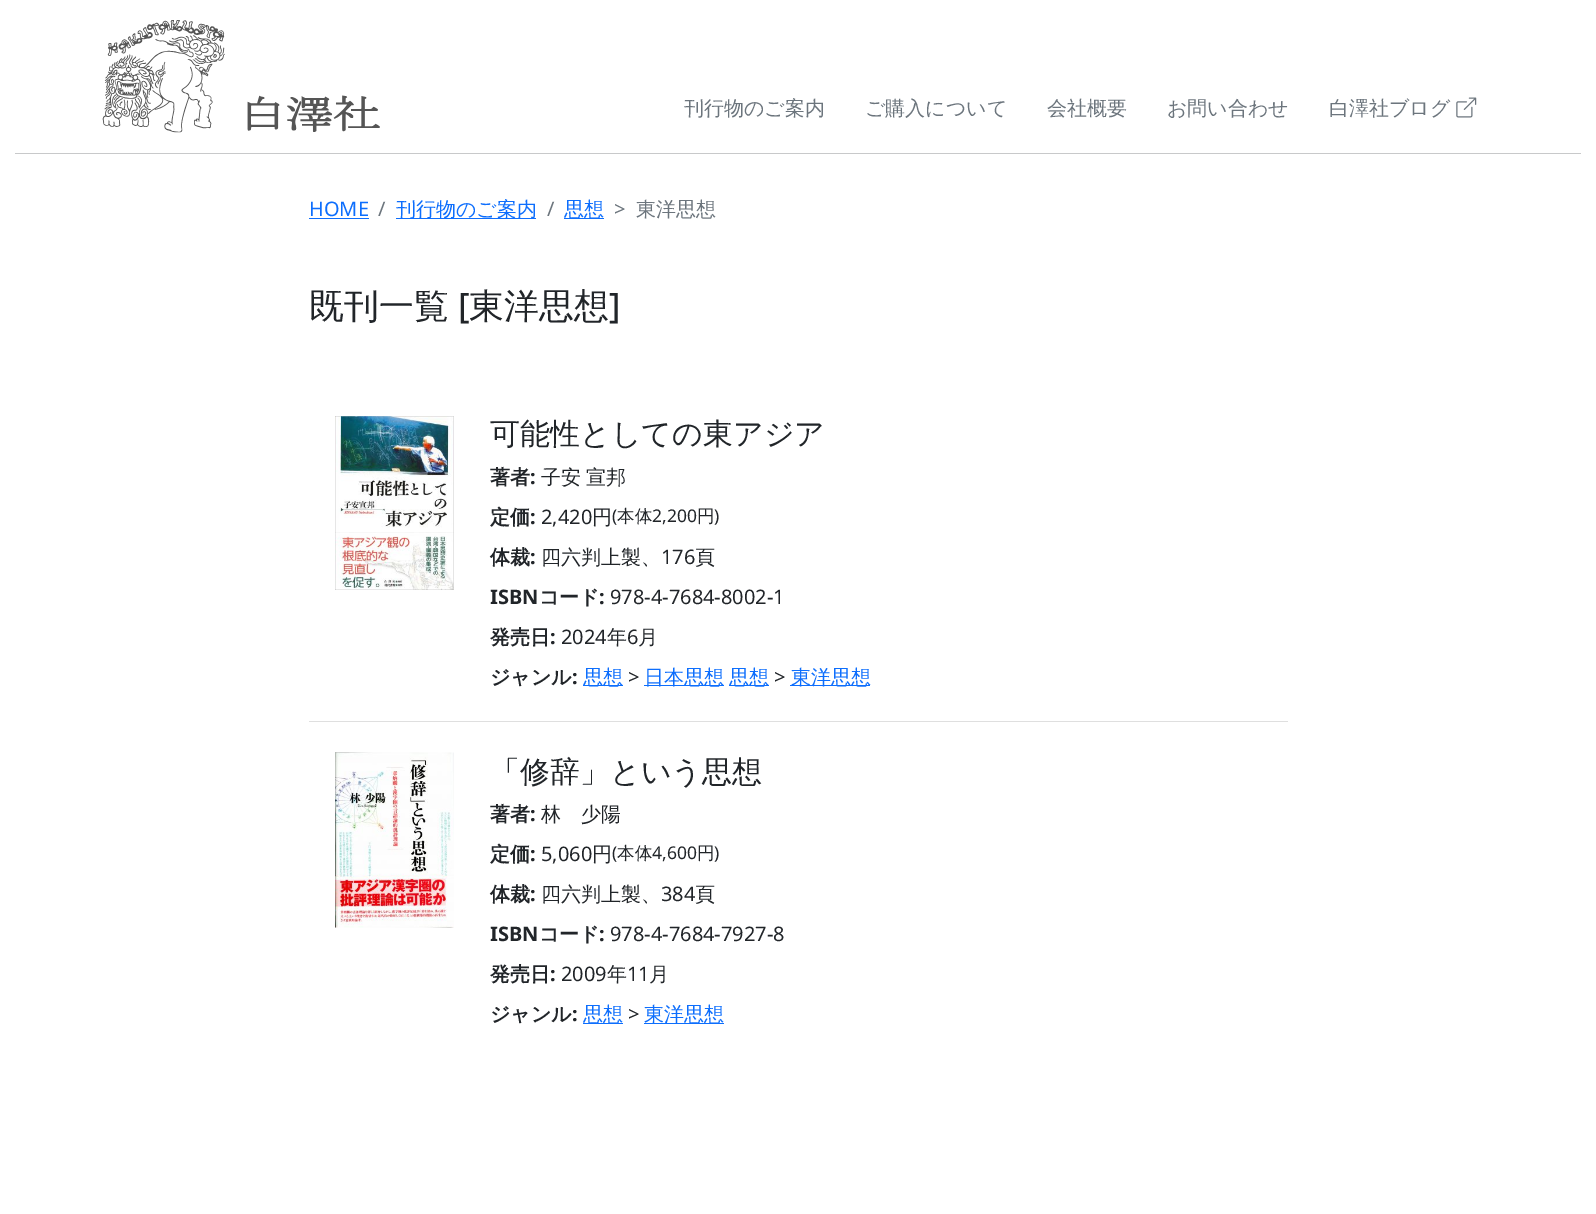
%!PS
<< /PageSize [1596 1214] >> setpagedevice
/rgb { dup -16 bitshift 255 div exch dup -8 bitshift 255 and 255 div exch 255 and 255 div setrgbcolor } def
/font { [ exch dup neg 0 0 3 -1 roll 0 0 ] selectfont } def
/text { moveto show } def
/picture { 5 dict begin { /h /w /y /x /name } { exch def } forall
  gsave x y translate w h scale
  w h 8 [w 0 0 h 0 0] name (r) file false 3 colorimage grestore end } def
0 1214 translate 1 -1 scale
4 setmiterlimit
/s1 { /WenQuanYiZenHei-Medium 20 font 16#6C757D rgb } def
/s2 { /NotoSans-Regular 20 font 16#0D6EFD rgb } def
/s3 { /NotoSans-Regular 20 font 16#6C757D rgb } def
/s4 { /WenQuanYiZenHei-Medium 20 font 16#0D6EFD rgb } def
/s5 { /WenQuanYiZenHei-Medium 35 font 16#212529 rgb } def
/s6 { /NotoSans-Medium 35 font 16#212529 rgb } def
/s7 { /WenQuanYiZenHei-Medium 30 font 16#212529 rgb } def
/s8 { /WenQuanYiZenHei-Bold 20 font 16#212529 rgb } def
/s9 { /NotoSans-Bold 20 font 16#212529 rgb } def
/s10 { /NotoSans-Regular 20 font 16#212529 rgb } def
/s11 { /WenQuanYiZenHei-Medium 20 font 16#212529 rgb } def
/s12 { /NotoSans-Regular 17.5 font 16#212529 rgb } def
/s13 { /WenQuanYiZenHei-Medium 17.5 font 16#212529 rgb } def
16#FFFFFF rgb
0 0 1596 1214 rectfill
(pic1.raw) 102 20 123 113 picture
(pic2.raw) 247 95 133 37 picture
s1
(刊行物のご案内) 684 115 text
(ご購入について) 865 115 text
(会社概要) 1047 115 text
(お問い合わせ) 1167 115 text
(白澤社ブログ) 1329 115 text
(pic3.raw) 1456 97 21 21 picture
16#C8C9CA rgb
15 153 1566 1 rectfill
s2
(HOME) 309 216 text
309 218 60 1 rectfill
s3
(/) 378 216 text
16#0D6EFD rgb
396 218 140 1 rectfill
s4
(刊行物のご案内) 396 216 text
s3
(/) 547 216 text
16#0D6EFD rgb
564 218 40 1 rectfill
s4
(思想) 564 216 text
s3
(>) 614 216 text
s1
(東洋思想) 636 216 text
s5
(既刊一覧) 309 318 text
s6
([) 458 318 text
s5
(東洋思想) 469 318 text
s6
(]) 609 318 text
16#DFDFDF rgb
309 721 979 1 rectfill
(pic4.raw) 335 416 119 174 picture
s7
(可能性としての東アジア) 490 444 text
s8
(著者) 490 484 text
s9
(:) 530 484 text
/WenQuanYiZenHei-Medium 20 font
541 484 moveto -1 0 32 (子安 宣邦) widthshow
s8
(定価) 490 524 text
s9
(:) 530 524 text
s10
(2,420) 541 524 text
s11
(円) 592 524 text
s12
(\() 612 522 text
s13
(本体) 617 522 text
s12
(2,200) 652 522 text
s13
(円) 697 522 text
s12
(\)) 714 522 text
s8
(体裁) 490 564 text
s9
(:) 530 564 text
s11
(四六判上製、) 541 564 text
s10
(176) 661 564 text
s11
(頁) 695 564 text
s9
(ISBN) 490 604 text
s8
(コード) 539 604 text
s9
(:) 599 604 text
s10
(978-4-7684-8002-1) 610 604 text
s8
(発売日) 490 644 text
s9
(:) 550 644 text
s10
(2024) 561 644 text
s11
(年) 607 644 text
s10
(6) 627 644 text
s11
(月) 638 644 text
s8
(ジャンル) 490 684 text
s9
(:) 572 684 text
16#0D6EFD rgb
583 685 40 1 rectfill
s4
(思想) 583 684 text
s10
(>) 628 684 text
16#0D6EFD rgb
644 685 80 1 rectfill
s4
(日本思想) 644 684 text
729 685 40 1 rectfill
(思想) 729 684 text
s10
(>) 774 684 text
16#0D6EFD rgb
790 685 80 1 rectfill
s4
(東洋思想) 791 684 text
(pic5.raw) 335 752 119 176 picture
s7
(「修辞」という思想) 490 782 text
s8
(著者) 490 821 text
s9
(:) 530 821 text
s11
(林　少陽) 541 821 text
s8
(定価) 490 861 text
s9
(:) 530 861 text
s10
(5,060) 541 861 text
s11
(円) 592 861 text
s12
(\() 612 859 text
s13
(本体) 617 859 text
s12
(4,600) 652 859 text
s13
(円) 697 859 text
s12
(\)) 714 859 text
s8
(体裁) 490 901 text
s9
(:) 530 901 text
s11
(四六判上製、) 541 901 text
s10
(384) 661 901 text
s11
(頁) 695 901 text
s9
(ISBN) 490 941 text
s8
(コード) 539 941 text
s9
(:) 599 941 text
s10
(978-4-7684-7927-8) 610 941 text
s8
(発売日) 490 981 text
s9
(:) 550 981 text
s10
(2009) 561 981 text
s11
(年) 607 981 text
s10
(11) 627 981 text
s11
(月) 649 981 text
s8
(ジャンル) 490 1021 text
s9
(:) 572 1021 text
16#0D6EFD rgb
583 1023 40 1 rectfill
s4
(思想) 583 1021 text
s10
(>) 628 1021 text
16#0D6EFD rgb
644 1023 80 1 rectfill
s4
(東洋思想) 644 1021 text
showpage
